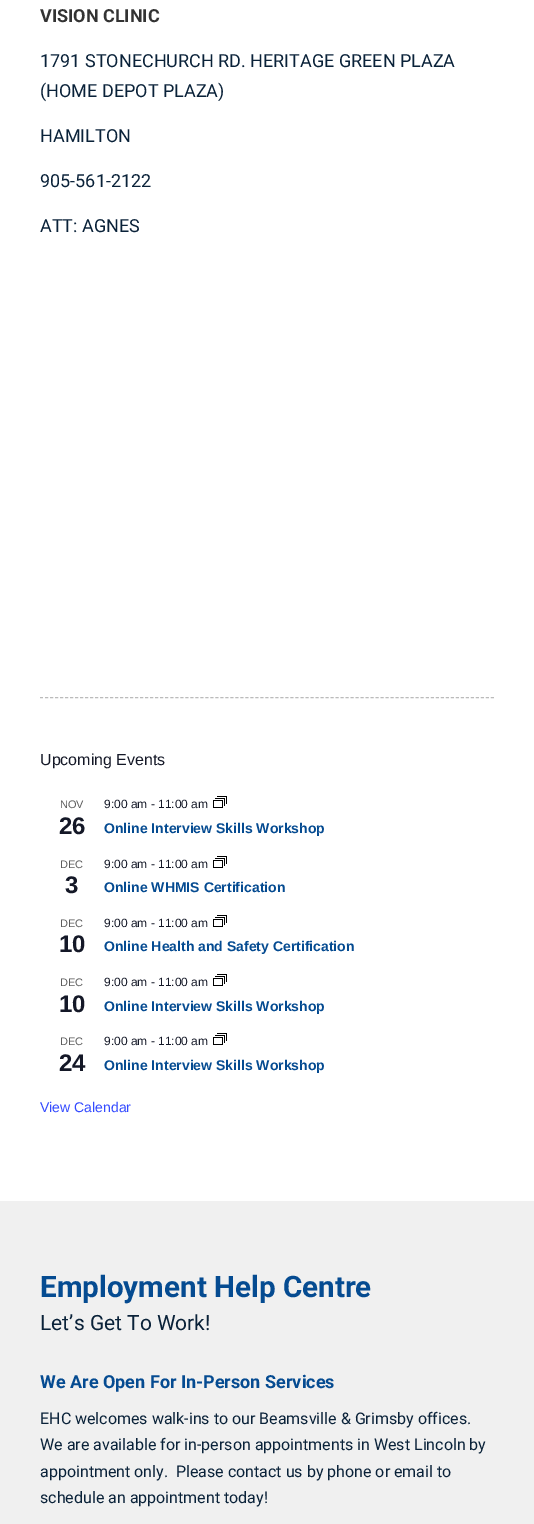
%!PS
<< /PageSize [534 1524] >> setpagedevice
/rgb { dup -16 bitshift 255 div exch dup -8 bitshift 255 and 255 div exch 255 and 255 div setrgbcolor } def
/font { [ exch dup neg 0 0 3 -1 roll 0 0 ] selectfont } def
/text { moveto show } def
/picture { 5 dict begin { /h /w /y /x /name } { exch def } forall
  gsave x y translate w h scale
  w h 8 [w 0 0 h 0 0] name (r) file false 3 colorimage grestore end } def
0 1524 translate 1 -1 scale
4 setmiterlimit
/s1 { /Roboto-Bold 18 font 16#333333 rgb } def
/s2 { /Roboto-Regular 18 font 16#0A2239 rgb } def
/s3 { /LiberationSans-Regular 16 font 16#141827 rgb } def
/s4 { /LiberationSans-Regular 11 font 16#5D5D5D rgb } def
/s5 { /LiberationSans-Bold 24 font 16#141827 rgb } def
/s6 { /LiberationSans-Regular 12 font 16#141827 rgb } def
/s7 { /LiberationSans-Bold 14 font 16#054B91 rgb } def
/s8 { /LiberationSans-Regular 14 font 16#334AFF rgb } def
/s9 { /Roboto-Bold 29.6 font 16#054B91 rgb } def
/s10 { /Roboto-Regular 21 font 16#0A2239 rgb } def
/s11 { /Roboto-Bold 18 font 16#054B91 rgb } def
/s12 { /Roboto-Regular 16 font 16#0A2239 rgb } def
16#FFFFFF rgb
0 0 534 1524 rectfill
s1
(VISION CLINIC) 40 22 text
s2
(1791 STONECHURCH RD. HERITAGE GREEN PLAZA) 40 67 text
(\(HOME DEPOT PLAZA\)) 40 97 text
(HAMILTON) 40 142 text
(905-561-2122) 40 187 text
(ATT: AGNES) 40 232 text
16#BBBBBB rgb
[3 2.01] 0 setdash
40 697.5 moveto 494 697.5 lineto stroke
s3
(Upcoming Events) 40 765 text
s4
(NOV) 60 808 text
s5
(26) 59 834 text
s6
(9:00 am - 11:00 am) 104 808 text
(pic1.raw) 213 796 14 12 picture
s7
(Online Interview Skills Workshop) 104 833 text
s4
(DEC) 60 868 text
s5
(3) 65 893 text
s6
(9:00 am - 11:00 am) 104 868 text
(pic1.raw) 213 856 14 12 picture
s7
(Online WHMIS Certification) 104 892 text
s4
(DEC) 60 927 text
s5
(10) 59 952 text
s6
(9:00 am - 11:00 am) 104 927 text
(pic1.raw) 213 915 14 12 picture
s7
(Online Health and Safety Certification) 104 951 text
s4
(DEC) 60 986 text
s5
(10) 59 1012 text
s6
(9:00 am - 11:00 am) 104 986 text
(pic1.raw) 213 974 14 12 picture
s7
(Online Interview Skills Workshop) 104 1011 text
s4
(DEC) 60 1045 text
s5
(24) 59 1071 text
s6
(9:00 am - 11:00 am) 104 1045 text
(pic1.raw) 213 1033 14 12 picture
s7
(Online Interview Skills Workshop) 104 1070 text
s8
(View Calendar) 40 1112 text
16#F0F0F0 rgb
0 1201 534 323 rectfill
s9
(Employment Help Centre) 40 1297 text
s10
(Let’s Get To Work!) 40 1330 text
s11
(We Are Open For In-Person Services) 40 1388 text
s12
(EHC welcomes walk-ins to our Beamsville & Grimsby offices.) 40 1424 text
(We are available for in-person appointments in West Lincoln by) 40 1450 text
(appointment only.  Please contact us by phone or email to) 40 1477 text
(schedule an appointment today!) 40 1503 text
showpage
